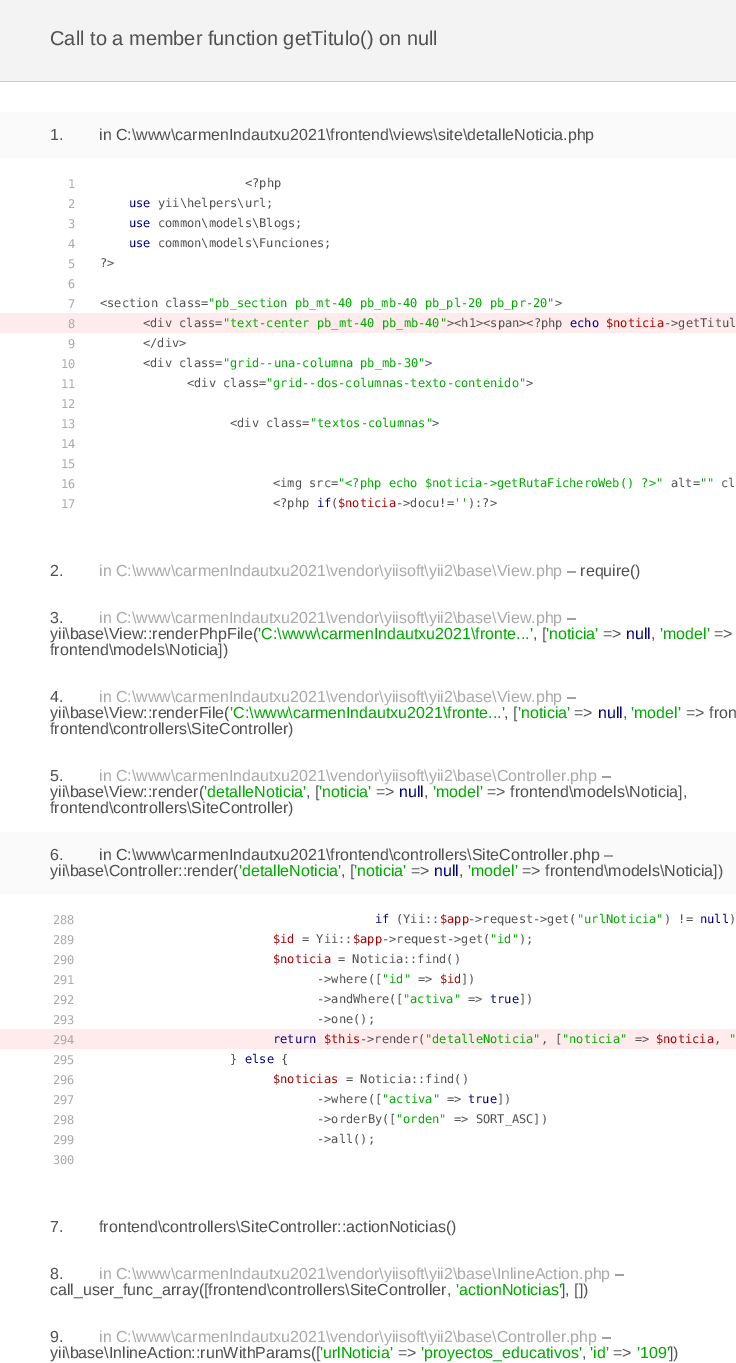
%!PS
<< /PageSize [736 1363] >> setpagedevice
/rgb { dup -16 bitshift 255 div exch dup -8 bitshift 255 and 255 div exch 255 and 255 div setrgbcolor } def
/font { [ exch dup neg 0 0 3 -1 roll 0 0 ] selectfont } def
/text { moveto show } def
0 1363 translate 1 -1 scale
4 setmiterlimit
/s1 { /LiberationSans-Regular 20 font 16#505050 rgb } def
/s2 { /LiberationSans-Regular 16 font 16#505050 rgb } def
/s3 { /DejaVuSansMono-Regular 12 font 16#AAAAAA rgb } def
/s4 { /DejaVuSansMono-Regular 12 font 16#505050 rgb } def
/s5 { /DejaVuSansMono-Regular 12 font 16#000080 rgb } def
/s6 { /DejaVuSansMono-Regular 12 font 16#00AA00 rgb } def
/s7 { /DejaVuSansMono-Regular 12 font 16#AA0000 rgb } def
/s8 { /LiberationSans-Regular 16 font 16#AAAAAA rgb } def
/s9 { /LiberationSans-Regular 16 font 16#00AA00 rgb } def
/s10 { /LiberationSans-Regular 16 font 16#000080 rgb } def
16#FFFFFF rgb
0 0 736 1363 rectfill
16#F3F3F3 rgb
0 0 736 81 rectfill
16#CCCCCC rgb
0 81 736 1 rectfill
s1
(Call to a member function getTitulo\(\) on null) 50 45 text
16#FAFAFA rgb
0 112 736 46 rectfill
s2
(1.) 50 140 text
(in C:\\www\\carmenIndautxu2021\\frontend\\views\\site\\detalleNoticia.php) 99 140 text
s3
(1) 68 188 text
s4
(<?php) 245 187 text
s3
(2) 68 208 text
s5
(use) 129 207 text
s4
(yii\\helpers\\url;) 158 207 text
s3
(3) 68 228 text
s5
(use) 129 227 text
s4
(common\\models\\Blogs;) 158 227 text
s3
(4) 68 248 text
s5
(use) 129 247 text
s4
(common\\models\\Funciones;) 158 247 text
s3
(5) 68 268 text
s4
(?>) 100 267 text
s3
(6) 68 288 text
(7) 68 308 text
s4
(<section class=) 100 307 text
s6
("pb_section pb_mt-40 pb_mb-40 pb_pl-20 pb_pr-20") 208 307 text
s4
(>) 555 307 text
16#FFEBEB rgb
0 313 736 20 rectfill
s3
(8) 68 328 text
s4
(<div class=) 143 327 text
s6
("text-center pb_mt-40 pb_mb-40") 223 327 text
s4
(><h1><span><?php) 447 327 text
s5
(echo) 570 327 text
s7
($noticia) 606 327 text
s4
(->getTitul) 664 327 text
s3
(9) 68 348 text
s4
(</div>) 143 347 text
s3
(10) 61 368 text
s4
(<div class=) 143 367 text
s6
("grid--una-columna pb_mb-30") 223 367 text
s4
(>) 425 367 text
s3
(11) 61 388 text
s4
(<div class=) 187 387 text
s6
("grid--dos-columnas-texto-contenido") 266 387 text
s4
(>) 526 387 text
s3
(12) 61 408 text
(13) 61 428 text
s4
(<div class=) 230 427 text
s6
("textos-columnas") 310 427 text
s4
(>) 432 427 text
s3
(14) 61 448 text
(15) 61 468 text
(16) 61 488 text
s4
(<img src=) 273 487 text
s6
("<?php echo $noticia->getRutaFicheroWeb\(\) ?>") 338 487 text
s4
(alt=) 671 487 text
s6
("") 700 487 text
s4
(cl) 721 487 text
s3
(17) 61 508 text
s4
(<?php) 273 507 text
s5
(if) 317 507 text
s4
(\() 331 507 text
s7
($noticia) 338 507 text
s4
(->docu!=) 396 507 text
s6
('') 454 507 text
s4
(\):?>) 468 507 text
s2
(2.) 50 576 text
s8
(in C:\\www\\carmenIndautxu2021\\vendor\\yiisoft\\yii2\\base\\View.php) 99 576 text
s2
(– require\(\)) 567 576 text
(3.) 50 623 text
s8
(in C:\\www\\carmenIndautxu2021\\vendor\\yiisoft\\yii2\\base\\View.php) 99 623 text
s2
(–) 567 623 text
(yii\\base\\View::renderPhpFile\() 50 639 text
s9
('C:\\www\\carmenIndautxu2021\\fronte...') 258 639 text
s2
(, [) 533 639 text
s9
('noticia') 546 639 text
s2
(=>) 603 639 text
s10
(null) 626 639 text
s9
('model') 660 639 text
s2
(=>) 714 639 text
(,) 651 639 text
(frontend\\models\\Noticia]\)) 50 655 text
(4.) 50 702 text
s8
(in C:\\www\\carmenIndautxu2021\\vendor\\yiisoft\\yii2\\base\\View.php) 99 702 text
s2
(–) 567 702 text
(yii\\base\\View::renderFile\() 50 718 text
s9
('C:\\www\\carmenIndautxu2021\\fronte...') 230 718 text
s2
(, [) 504 718 text
s9
('noticia') 518 718 text
s2
(=>) 574 718 text
s10
(null) 598 718 text
s9
('model') 631 718 text
s2
(=> fron) 686 718 text
(,) 623 718 text
(frontend\\controllers\\SiteController\)) 50 734 text
(5.) 50 781 text
s8
(in C:\\www\\carmenIndautxu2021\\vendor\\yiisoft\\yii2\\base\\Controller.php) 99 781 text
s2
(–) 602 781 text
(yii\\base\\View::render\() 50 797 text
s9
('detalleNoticia') 204 797 text
s2
(, [) 306 797 text
s9
('noticia') 319 797 text
s2
(=>) 376 797 text
s10
(null) 399 797 text
s9
('model') 433 797 text
s2
(=> frontend\\models\\Noticia],) 487 797 text
(,) 424 797 text
(frontend\\controllers\\SiteController\)) 50 813 text
16#FAFAFA rgb
0 832 736 62 rectfill
s2
(6.) 50 860 text
(in C:\\www\\carmenIndautxu2021\\frontend\\controllers\\SiteController.php –) 99 860 text
(yii\\base\\Controller::render\() 50 876 text
s9
('detalleNoticia') 239 876 text
s2
(, [) 341 876 text
s9
('noticia') 354 876 text
s2
(=>) 411 876 text
s10
(null) 434 876 text
s9
('model') 468 876 text
s2
(=> frontend\\models\\Noticia]\)) 522 876 text
(,) 459 876 text
s3
(288) 53 924 text
s5
(if) 375 923 text
s4
(\(Yii::) 396 923 text
s7
($app) 440 923 text
s4
(->request->get\() 468 923 text
s6
("urlNoticia") 577 923 text
s4
(\) !=) 664 923 text
s5
(null) 700 923 text
s4
(\)) 729 923 text
s3
(289) 53 944 text
s7
($id) 273 943 text
s4
(= Yii::) 302 943 text
s7
($app) 353 943 text
s4
(->request->get\() 382 943 text
s6
("id") 490 943 text
s4
(\);) 519 943 text
s3
(290) 53 964 text
s7
($noticia) 273 963 text
s4
(= Noticia::find\(\)) 338 963 text
s3
(291) 53 984 text
s4
(->where\([) 317 983 text
s6
("id") 382 983 text
s4
(=>) 418 983 text
s7
($id) 440 983 text
s4
(]\)) 461 983 text
s3
(292) 53 1004 text
s4
(->andWhere\([) 317 1003 text
s6
("activa") 403 1003 text
s4
(=>) 468 1003 text
s5
(true) 490 1003 text
s4
(]\)) 519 1003 text
s3
(293) 53 1024 text
s4
(->one\(\);) 317 1023 text
16#FFEBEB rgb
0 1029 736 20 rectfill
s3
(294) 53 1044 text
s5
(return) 273 1043 text
s7
($this) 324 1043 text
s4
(->render\() 360 1043 text
s6
("detalleNoticia") 425 1043 text
s4
(, [) 541 1043 text
s6
("noticia") 562 1043 text
s4
(=>) 635 1043 text
s7
($noticia) 656 1043 text
s4
(,) 714 1043 text
s6
(") 729 1043 text
s3
(295) 53 1064 text
s4
(}) 230 1063 text
s5
(else) 245 1063 text
s4
({) 281 1063 text
s3
(296) 53 1084 text
s7
($noticias) 273 1083 text
s4
(= Noticia::find\(\)) 346 1083 text
s3
(297) 53 1104 text
s4
(->where\([) 317 1103 text
s6
("activa") 382 1103 text
s4
(=>) 447 1103 text
s5
(true) 468 1103 text
s4
(]\)) 497 1103 text
s3
(298) 53 1124 text
s4
(->orderBy\([) 317 1123 text
s6
("orden") 396 1123 text
s4
(=> SORT_ASC]\)) 454 1123 text
s3
(299) 53 1144 text
s4
(->all\(\);) 317 1143 text
s3
(300) 53 1164 text
s2
(7.) 50 1232 text
(frontend\\controllers\\SiteController::actionNoticias\(\)) 99 1232 text
(8.) 50 1279 text
s8
(in C:\\www\\carmenIndautxu2021\\vendor\\yiisoft\\yii2\\base\\InlineAction.php) 99 1279 text
s2
(–) 615 1279 text
(call_user_func_array\([frontend\\controllers\\SiteController,) 50 1295 text
s9
('actionNoticias') 456 1295 text
s2
(], []\)) 561 1295 text
(9.) 50 1342 text
s8
(in C:\\www\\carmenIndautxu2021\\vendor\\yiisoft\\yii2\\base\\Controller.php) 99 1342 text
s2
(–) 602 1342 text
(yii\\base\\InlineAction::runWithParams\([) 50 1358 text
s9
('urlNoticia') 320 1358 text
s2
(=>) 398 1358 text
s9
('proyectos_educativos') 421 1358 text
('id') 590 1358 text
s2
(=>) 613 1358 text
s9
('109') 637 1358 text
s2
(]\)) 669 1358 text
(,) 582 1358 text
showpage
